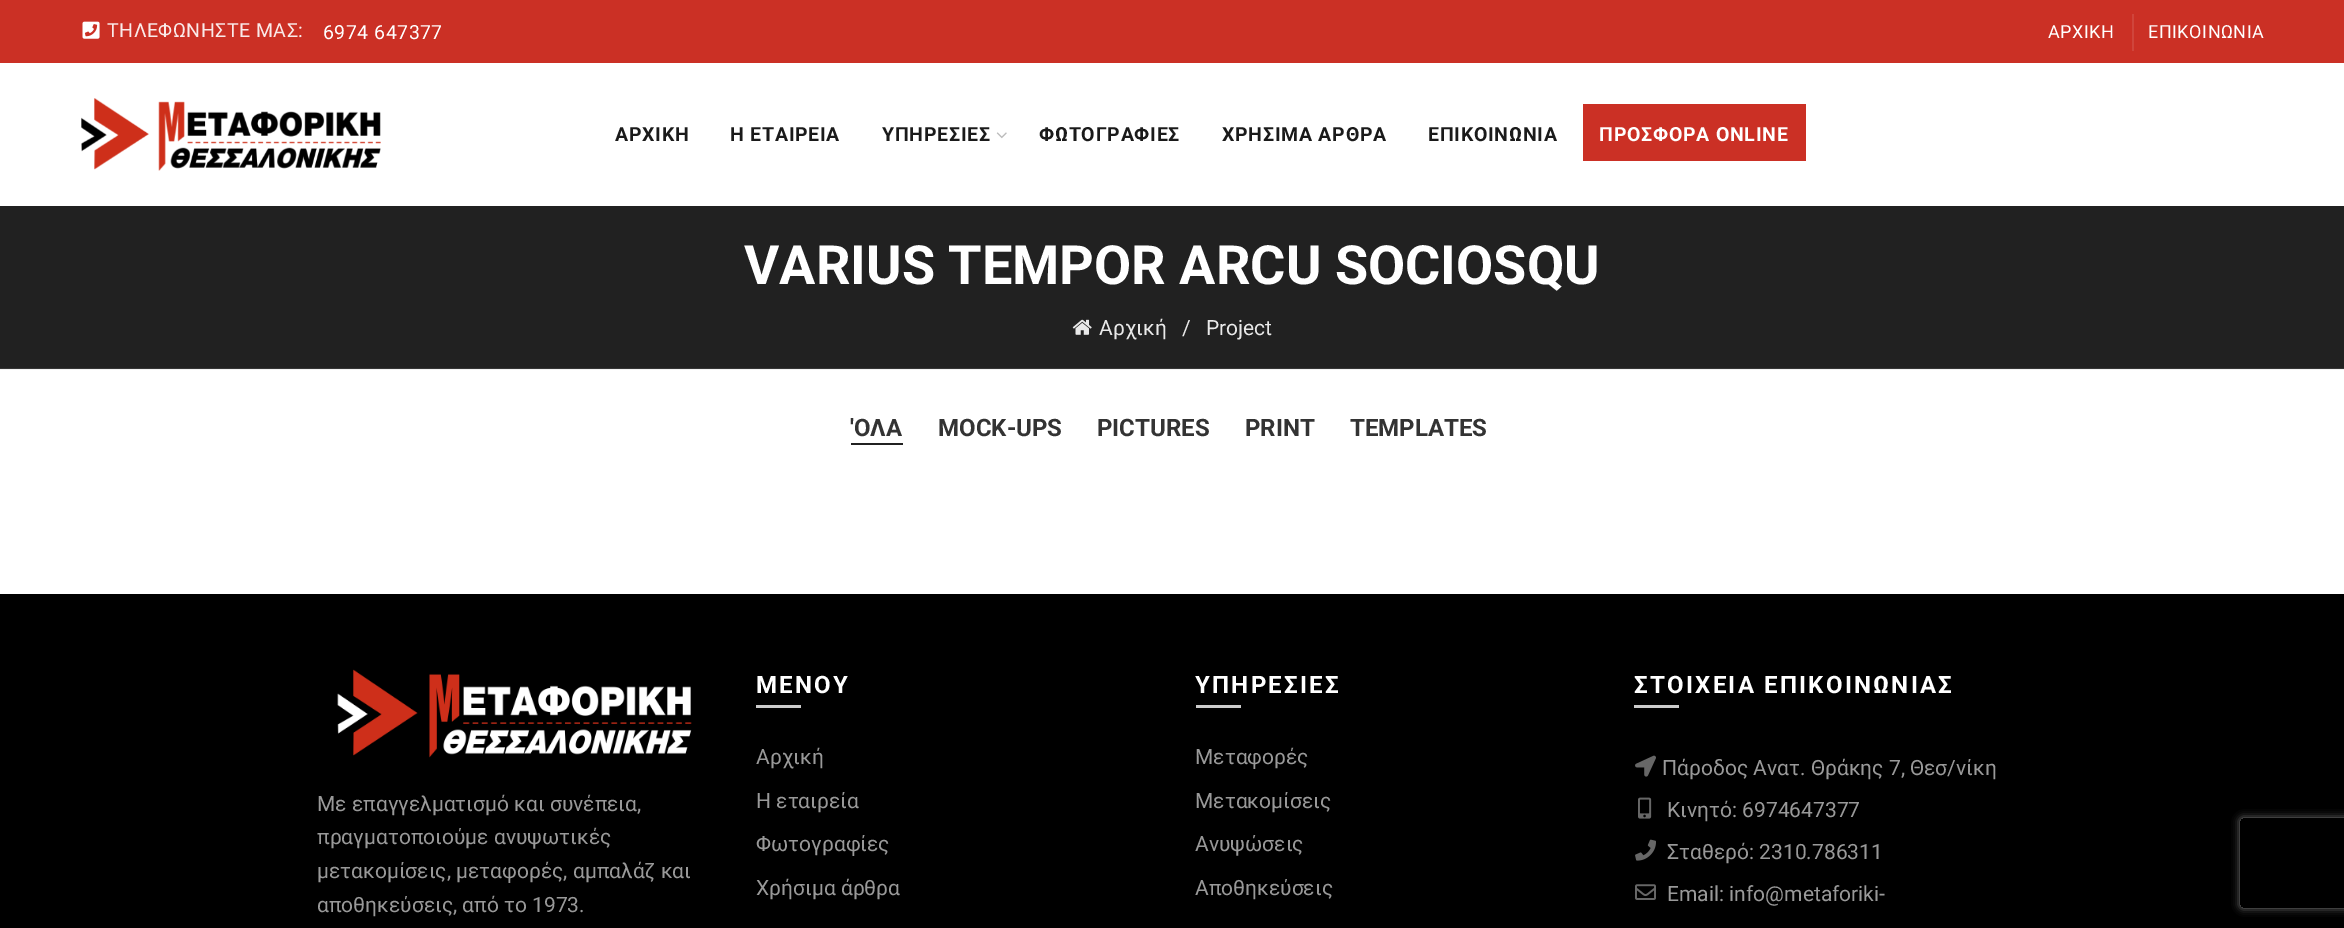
%!PS
<< /PageSize [2344 928] /PageUsesTransparency true >> setpagedevice
/rgb { dup -16 bitshift 255 div exch dup -8 bitshift 255 and 255 div exch 255 and 255 div setrgbcolor } def
/font { [ exch dup neg 0 0 3 -1 roll 0 0 ] selectfont } def
/text { moveto show } def
/alpha { dup .setfillconstantalpha .setstrokeconstantalpha } def
/roundrect { 5 dict begin { /r /h /w /y /x } { exch def } forall
  x r add y moveto x w add y 2 copy h add r arct x w add y h add x 1 index r arct
  x y h add x y r arct x y 2 copy exch w add exch r arct closepath end } def
/shadow { 12 dict begin { /a /b /q /h /w /y /x } { exch def } forall gsave /was 0 def
  9 -2 -9 { dup b mul 4 div /e exch def 1 sub .425 mul 2.718 exch exp 1 add a .99 .min exch div /now exch def
    1 1 now sub 1 was sub div sub alpha /was now def
    w h .min e 2 mul add 0 gt { x e sub y e sub w e 2 mul add h e 2 mul add
      q e add b .6 mul add w h .min 2 div e add .min 0 .max roundrect fill } if } for grestore end } def
/picture { 5 dict begin { /h /w /y /x /name } { exch def } forall
  gsave x y translate w h scale
  w h 8 [w 0 0 h 0 0] name (r) file false 3 colorimage grestore end } def
0 .pushpdf14devicefilter
0 928 translate 1 -1 scale
4 setmiterlimit
/s1 { /Roboto-Bold 54 font 16#FFFFFF rgb } def
/s2 { /Roboto-Regular 21 font 16#E9E9E9 rgb } def
/s3 { /Roboto-Bold 24 font 16#333333 rgb } def
/s4 { /Roboto-Regular 21 font 16#999999 rgb } def
16#FFFFFF rgb
0 0 2344 928 rectfill
16#F2F2F2 rgb
0 369 2344 1 rectfill
16#CB3025 rgb
0 0 2344 63 rectfill
(pic1.raw) 82 21 18 18 picture
/Roboto-Regular 19.5 font
16#FAEAE9 rgb
107 37 moveto 0.5 0 (ΤΗΛΕΦΩΝΗΣΤΕ ΜΑΣ:) ashow
16#FFFFFF rgb
323 39 moveto 0.5 0 (6974 647377) ashow
/Roboto-Regular 18 font
2048 38 moveto 0.5 0 (ΑΡΧΙΚΗ) ashow
16#D0453B rgb
2132 14 2 37 rectfill
16#FFFFFF rgb
2148 38 moveto 0.5 0 (ΕΠΙΚΟΙΝΩΝΙΑ) ashow
(pic2.raw) 81 98 300 73 picture
/Roboto-Bold 19.5 font
16#1A1A1A rgb
615 141 moveto 0.75 0 (ΑΡΧΙΚΗ) ashow
730 141 moveto 0.75 0 (Η ΕΤΑΙΡΕΙΑ) ashow
882 141 moveto 0.75 0 (ΥΠΗΡΕΣΙΕΣ) ashow
(pic3.raw) 996 132 11 7 picture
1039 141 moveto 0.75 0 (ΦΩΤΟΓΡΑΦΙΕΣ) ashow
1222 141 moveto 0.75 0 (ΧΡΗΣΙΜΑ ΑΡΘΡΑ) ashow
1428 141 moveto 0.75 0 (ΕΠΙΚΟΙΝΩΝΙΑ) ashow
16#CB3025 rgb
1583 104 223 57 rectfill
16#FFFFFF rgb
1599 141 moveto 0.75 0 (ΠΡΟΣΦΟΡΑ ONLINE) ashow
16#212121 rgb
0 206 2344 162 rectfill
16#353535 rgb
0 368 2344 1 rectfill
s1
(VARIUS TEMPOR ARCU SOCIOSQU) 744 284 text
(pic4.raw) 1072 319 20 16 picture
s2
(Αρχική) 1099 335 text
(/) 1182 335 text
(Project) 1206 335 text
s3
('ΟΛΑ) 850 436 text
16#212121 rgb
851 443 52 2 rectfill
s3
(MOCK-UPS) 938 436 text
(PICTURES) 1097 436 text
(PRINT) 1245 436 text
(TEMPLATES) 1350 436 text
16#000000 rgb
0 594 2344 334 rectfill
(pic5.raw) 337 669 355 89 picture
s4
(Με επαγγελματισμό και συνέπεια,) 317 811 text
(πραγματοποιούμε ανυψωτικές) 317 844 text
(μετακομίσεις, μεταφορές, αμπαλάζ και) 317 878 text
(αποθηκεύσεις, από το 1973.) 317 912 text
/Roboto-Bold 24 font
16#FFFFFF rgb
756 693 moveto 2.25 0 (ΜΕΝΟΥ) ashow
16#CCCCCC rgb
756 705 45 3 rectfill
s4
(Αρχική) 756 764 text
(Η εταιρεία) 756 808 text
(Φωτογραφίες) 756 851 text
(Χρήσιμα άρθρα) 756 895 text
/Roboto-Bold 24 font
16#FFFFFF rgb
1195 693 moveto 2.25 0 (ΥΠΗΡΕΣΙΕΣ) ashow
16#CCCCCC rgb
1196 705 45 3 rectfill
s4
(Μεταφορές) 1195 764 text
(Μετακομίσεις) 1195 808 text
(Ανυψώσεις) 1195 851 text
(Αποθηκεύσεις) 1195 895 text
/Roboto-Bold 24 font
16#FFFFFF rgb
1634 693 moveto 2.25 0 (ΣΤΟΙΧΕΙΑ ΕΠΙΚΟΙΝΩΝΙΑΣ) ashow
16#CCCCCC rgb
1634 705 45 3 rectfill
(pic6.raw) 1635 755 21 22 picture
s4
(Πάροδος Ανατ. Θράκης 7, Θεσ/νίκη) 1662 775 text
(pic7.raw) 1638 797 14 22 picture
(Κινητό: 6974647377) 1667 817 text
(pic8.raw) 1635 839 21 22 picture
(Σταθερό: 2310.786311) 1667 859 text
(pic9.raw) 1635 884 21 16 picture
(Email: info@metaforiki-) 1667 901 text
gsave
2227 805 moveto 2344 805 lineto 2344 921 lineto 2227 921 lineto closepath 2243 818 moveto 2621 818 lineto 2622.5 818 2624 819.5 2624 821 curveto 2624 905 lineto 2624 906.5 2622.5 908 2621 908 curveto 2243 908 lineto 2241.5 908 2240 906.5 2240 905 curveto 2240 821 lineto 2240 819.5 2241.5 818 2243 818 curveto closepath eoclip newpath
16#808080 rgb
2240 818 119 90 3 4 1 shadow
grestore
.poppdf14devicefilter showpage
